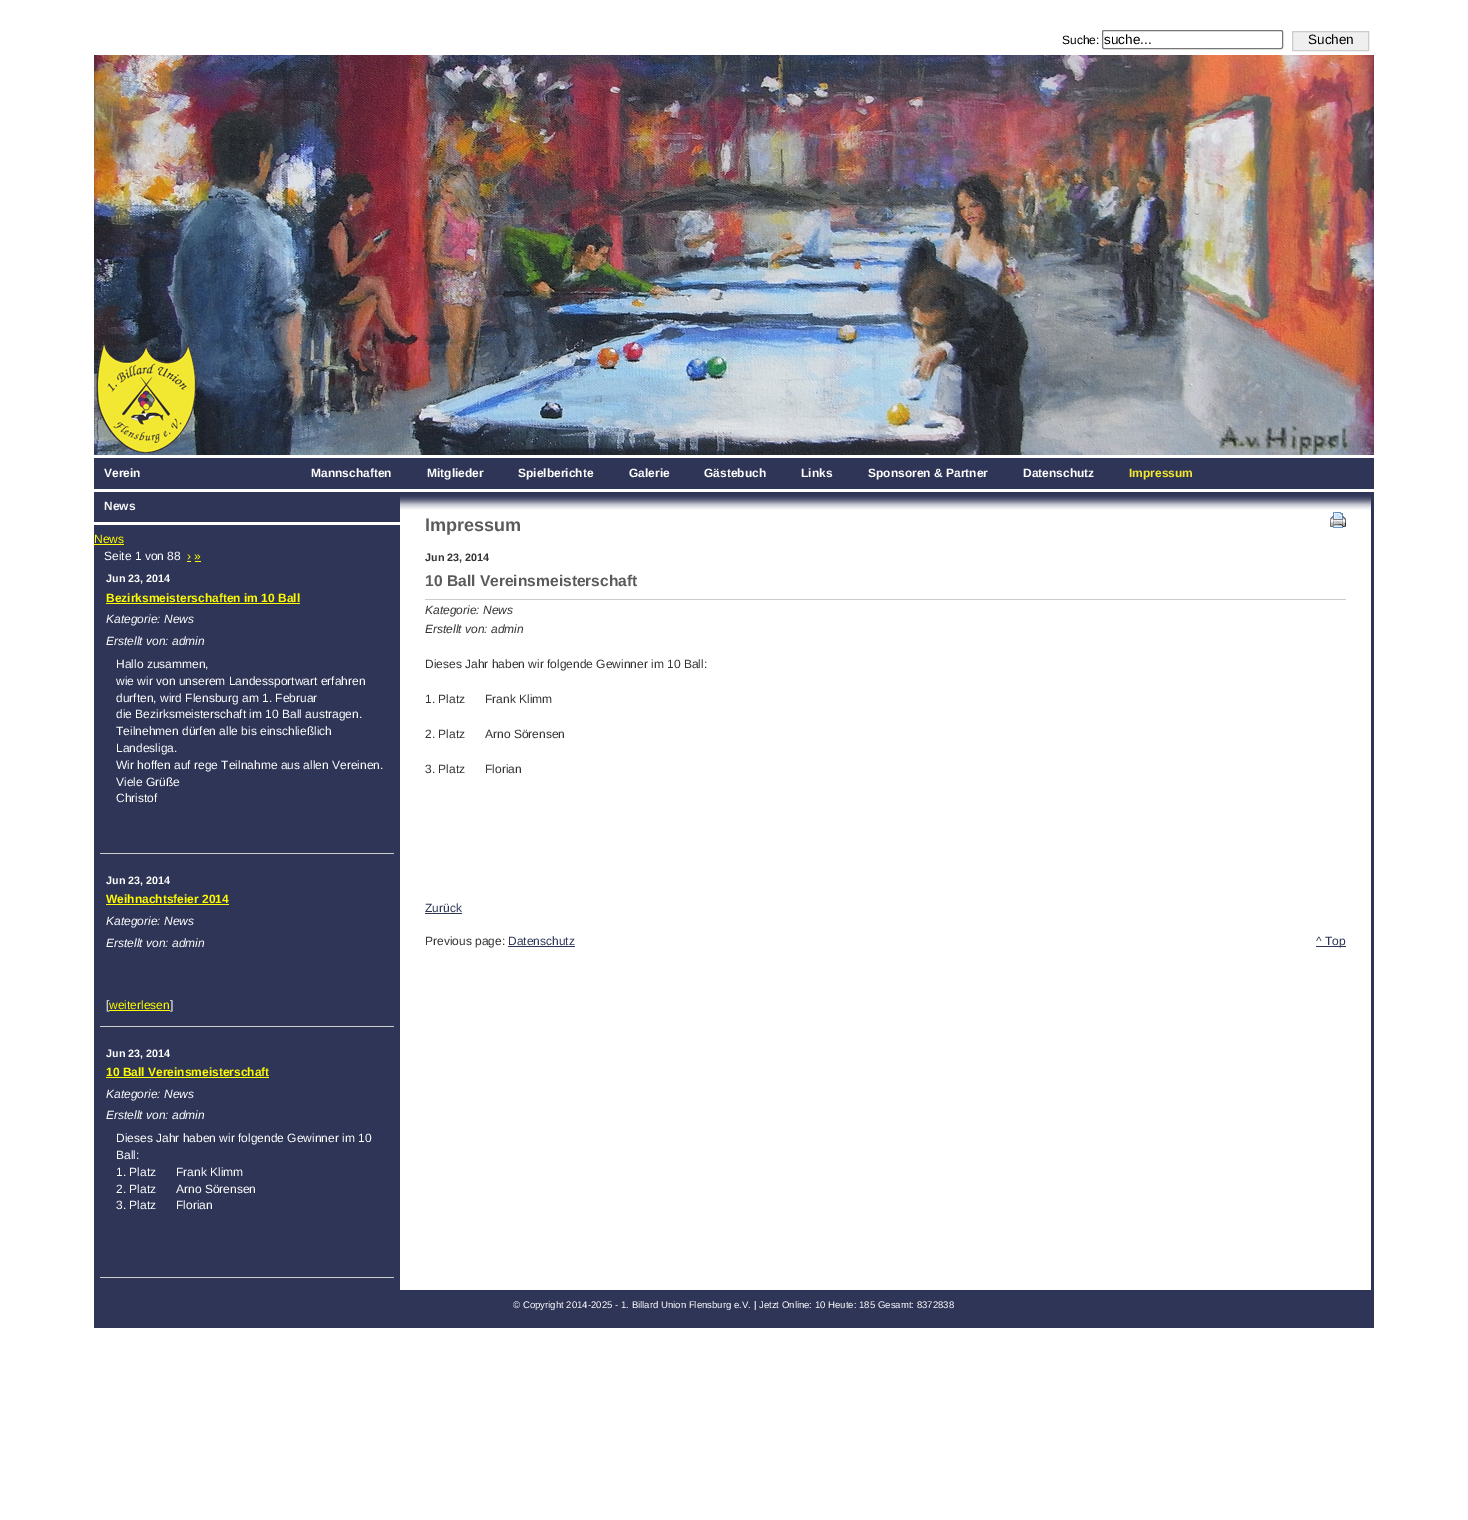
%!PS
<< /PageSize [1468 1520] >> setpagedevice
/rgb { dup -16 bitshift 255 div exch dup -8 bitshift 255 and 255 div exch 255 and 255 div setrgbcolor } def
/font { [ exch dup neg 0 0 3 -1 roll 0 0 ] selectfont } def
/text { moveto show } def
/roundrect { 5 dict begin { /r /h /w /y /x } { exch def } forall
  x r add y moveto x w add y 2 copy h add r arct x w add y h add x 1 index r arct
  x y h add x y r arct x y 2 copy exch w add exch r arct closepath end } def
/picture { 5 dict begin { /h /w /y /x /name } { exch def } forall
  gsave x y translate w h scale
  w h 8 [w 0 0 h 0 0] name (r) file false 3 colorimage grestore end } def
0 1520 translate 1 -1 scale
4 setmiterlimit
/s1 { /LiberationSans-Regular 12 font 16#000000 rgb } def
/s2 { /LiberationSans-Regular 13.5 font 16#000000 rgb } def
/s3 { /LiberationSans-Bold 12 font 16#FFFFFF rgb } def
/s4 { /LiberationSans-Bold 12 font 16#F2E731 rgb } def
/s5 { /LiberationSans-Bold 12 font 16#F5F5F5 rgb } def
/s6 { /LiberationSans-Regular 12 font 16#FFFC00 rgb } def
/s7 { /LiberationSans-Regular 12 font 16#FFFFFF rgb } def
/s8 { /LiberationSans-Bold 10.75 font 16#FFFFFF rgb } def
/s9 { /LiberationSans-Bold 12 font 16#FFFC00 rgb } def
/s10 { /LiberationSans-Italic 12 font 16#FFFFFF rgb } def
/s11 { /LiberationSans-Bold 18 font 16#5C5B5B rgb } def
/s12 { /LiberationSans-Bold 10.75 font 16#333333 rgb } def
/s13 { /LiberationSans-Bold 15.6 font 16#5C5B5B rgb } def
/s14 { /LiberationSans-Italic 12 font 16#333333 rgb } def
/s15 { /LiberationSans-Regular 12 font 16#333333 rgb } def
/s16 { /LiberationSans-Regular 12 font 16#2E3556 rgb } def
/s17 { /LiberationSans-Regular 9.6 font 16#FFFFFF rgb } def
16#FFFFFF rgb
0 0 1468 1520 rectfill
s1
(Suche:) 1062 44 text
16#767676 rgb
1102.5 30.5 180 18 1.5 roundrect stroke
s2
(suche...) 1104 44 text
16#EFEFEF rgb
1292.5 31.5 moveto 1368.5 31.5 lineto 1368.5 50.5 lineto 1292.5 50.5 lineto closepath gsave fill grestore
16#CCCCCC rgb
stroke
s2
(Suchen) 1308 44 text
(pic1.raw) 94 55 1280 400 picture
16#2E3556 rgb
94 458 1280 31 rectfill
s3
(Verein) 104 477 text
(Mannschaften) 311 477 text
(Mitglieder) 427 477 text
(Spielberichte) 518 477 text
(Galerie) 629 477 text
(Gästebuch) 704 477 text
(Links) 801 477 text
(Sponsoren & Partner) 868 477 text
(Datenschutz) 1023 477 text
s4
(Impressum) 1129 477 text
(pic2.raw) 94 492 1280 798 picture
16#FFFFFF rgb
94 522 306 3 rectfill
s5
(News) 104 510 text
s6
(News) 94 543 text
94 544 30 1 rectfill
s7
(Seite 1 von 88) 104 560 text
s6
(› ») 187 560 text
187 561 4 1 rectfill
195 561 6 1 rectfill
16#CCCCCC rgb
100 853 294 1 rectfill
s8
(Jun 23, 2014) 106 582 text
s9
(Bezirksmeisterschaften im 10 Ball) 106 602 text
106 603 194 1 rectfill
s10
(Kategorie: News) 106 623 text
(Erstellt von: admin) 106 645 text
s7
(Hallo zusammen,) 116 668 text
(wie wir von unserem Landessportwart erfahren) 116 685 text
(durften, wird Flensburg am 1. Februar) 116 702 text
(die Bezirksmeisterschaft im 10 Ball austragen.) 116 718 text
(Teilnehmen dürfen alle bis einschließlich) 116 735 text
(Landesliga.) 116 752 text
(Wir hoffen auf rege Teilnahme aus allen Vereinen.) 116 769 text
(Viele Grüße) 116 786 text
(Christof) 116 802 text
16#CCCCCC rgb
100 1026 294 1 rectfill
s8
(Jun 23, 2014) 106 884 text
s9
(Weihnachtsfeier 2014) 106 903 text
106 904 123 1 rectfill
s10
(Kategorie: News) 106 925 text
(Erstellt von: admin) 106 947 text
s7
([) 106 1009 text
s6
(weiterlesen) 109 1009 text
109 1010 61 1 rectfill
s7
(]) 170 1009 text
16#CCCCCC rgb
100 1277 294 1 rectfill
s8
(Jun 23, 2014) 106 1057 text
s9
(10 Ball Vereinsmeisterschaft) 106 1076 text
106 1077 163 1 rectfill
s10
(Kategorie: News) 106 1098 text
(Erstellt von: admin) 106 1119 text
s7
(Dieses Jahr haben wir folgende Gewinner im 10) 116 1142 text
(Ball:) 116 1159 text
(1. Platz      Frank Klimm) 116 1176 text
(2. Platz      Arno Sörensen) 116 1193 text
(3. Platz      Florian) 116 1209 text
(pic3.raw) 400 492 971 18 picture
s11
(Impressum) 425 531 text
(pic4.raw) 1330 512 16 16 picture
s12
(Jun 23, 2014) 425 561 text
s13
(10 Ball Vereinsmeisterschaft) 425 586 text
16#CCCCCC rgb
425 599 921 1 rectfill
s14
(Kategorie: News) 425 614 text
(Erstellt von: admin) 425 633 text
s15
(Dieses Jahr haben wir folgende Gewinner im 10 Ball:) 425 668 text
(1. Platz      Frank Klimm) 425 703 text
(2. Platz      Arno Sörensen) 425 738 text
(3. Platz      Florian) 425 773 text
s16
(Zurück) 425 912 text
425 913 37 1 rectfill
s15
(Previous page:) 425 945 text
s16
(Datenschutz) 508 945 text
508 946 67 1 rectfill
1316 946 30 1 rectfill
(^ Top) 1316 945 text
94 1290 1280 38 rectfill
s17
(© Copyright 2014-2025 - 1. Billard Union Flensburg e.V. | Jetzt Online: 10 Heute: 185 Gesamt: 8372838) 513 1308 text
showpage
